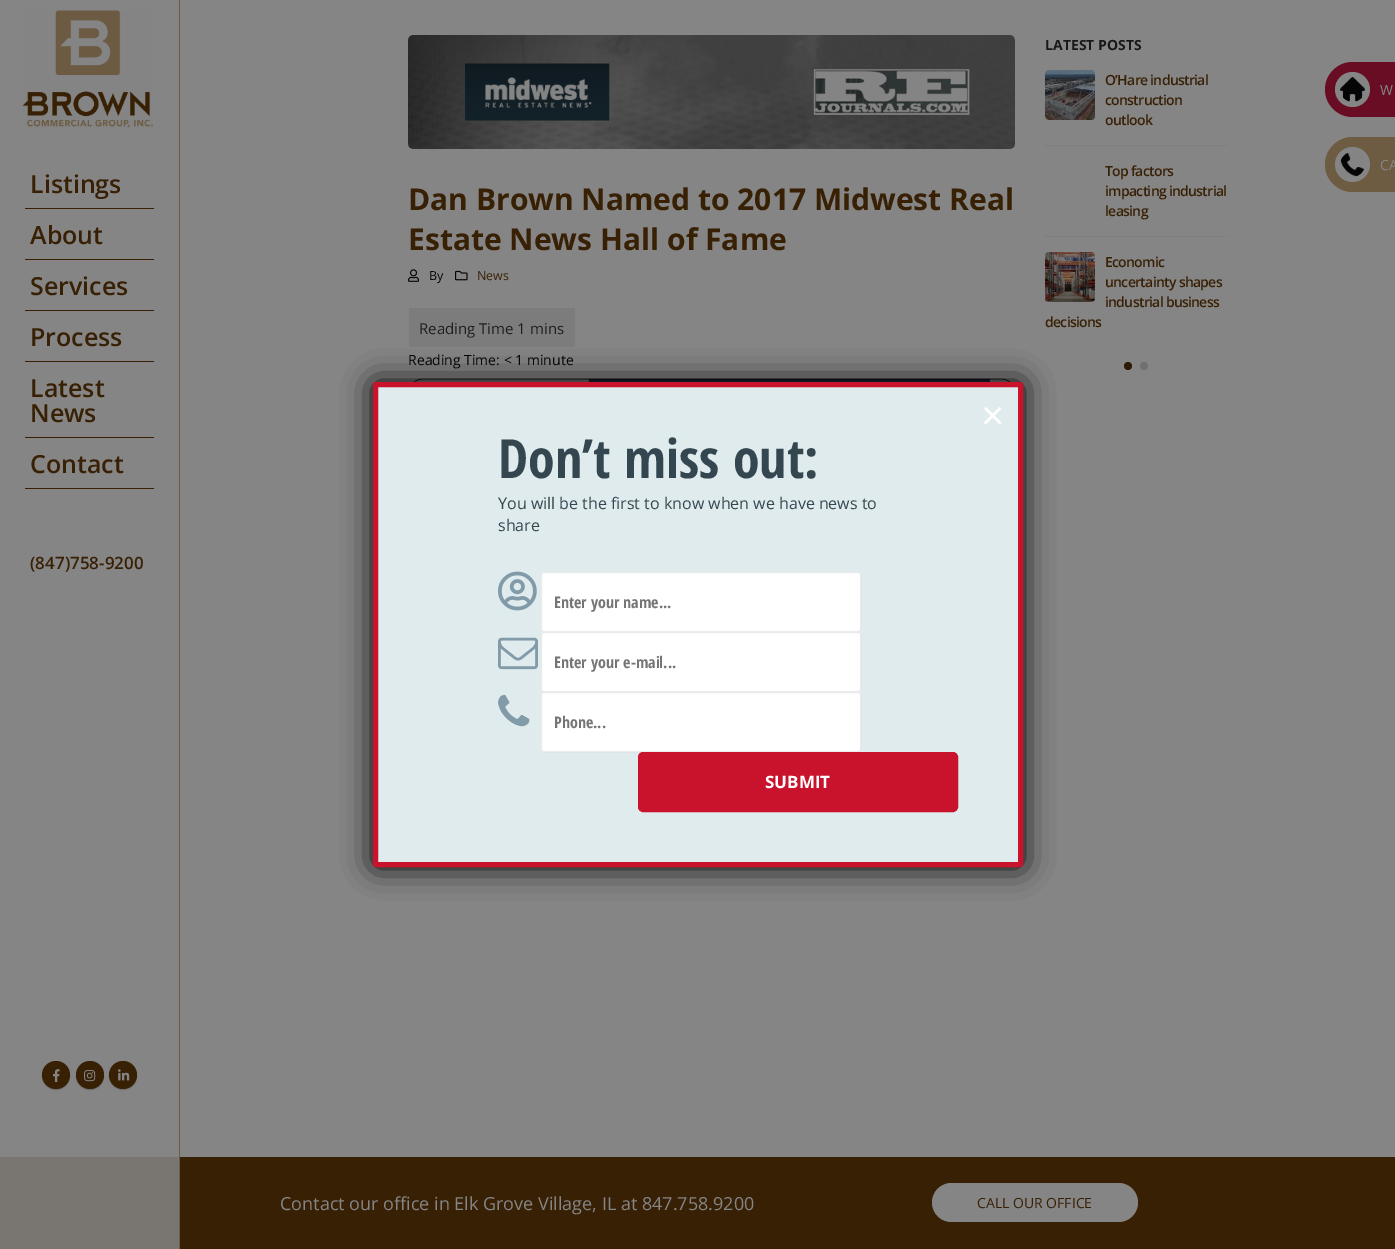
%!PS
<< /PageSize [1395 1249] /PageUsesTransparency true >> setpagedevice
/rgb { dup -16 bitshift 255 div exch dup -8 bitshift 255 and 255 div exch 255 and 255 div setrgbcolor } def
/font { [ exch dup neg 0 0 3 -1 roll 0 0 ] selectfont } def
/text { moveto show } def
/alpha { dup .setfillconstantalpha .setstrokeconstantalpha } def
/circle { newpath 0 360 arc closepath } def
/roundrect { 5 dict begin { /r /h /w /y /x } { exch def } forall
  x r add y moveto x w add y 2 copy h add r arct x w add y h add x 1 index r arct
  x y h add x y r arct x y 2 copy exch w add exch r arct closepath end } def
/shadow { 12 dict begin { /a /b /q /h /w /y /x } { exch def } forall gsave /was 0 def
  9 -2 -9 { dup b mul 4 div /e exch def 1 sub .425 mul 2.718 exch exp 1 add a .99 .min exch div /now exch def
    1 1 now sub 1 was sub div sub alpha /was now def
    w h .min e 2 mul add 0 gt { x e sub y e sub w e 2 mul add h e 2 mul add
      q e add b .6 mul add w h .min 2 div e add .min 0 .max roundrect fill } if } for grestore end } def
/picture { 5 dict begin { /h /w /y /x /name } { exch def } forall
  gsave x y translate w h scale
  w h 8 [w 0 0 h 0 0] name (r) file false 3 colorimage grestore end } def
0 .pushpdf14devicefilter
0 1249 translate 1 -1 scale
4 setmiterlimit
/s1 { /OpenSans-SemiBold 25 font 16#382005 rgb } def
/s2 { /OpenSans-SemiBold 17 font 16#382005 rgb } def
/s3 { /OpenSans-Bold 30 font 16#382005 rgb } def
/s4 { /OpenSans-Regular 12.5 font 16#050505 rgb } def
/s5 { /OpenSans-Regular 12.5 font 16#382005 rgb } def
/s6 { /OpenSans-Regular 15 font 16#1F1F1F rgb } def
/s7 { /OpenSans-Regular 14 font 16#050505 rgb } def
/s8 { /OpenSans-Bold 14 font 16#16181A rgb } def
/s9 { /OpenSans-Regular 14 font 16#858585 rgb } def
/s10 { /LiberationSans-Regular 40 font 16#FFFFFF rgb } def
/s11 { /OpenSansCondensed-Bold 54 font 16#344750 rgb } def
/s12 { /OpenSans-Regular 16 font 16#344750 rgb } def
/s13 { /OpenSansCondensed-Bold 16 font 16#757575 rgb } def
/s14 { /OpenSans-Bold 17 font 16#FFFFFF rgb } def
/s15 { /OpenSans-Regular 18 font 16#858585 rgb } def
/s16 { /OpenSans-Regular 14 font 16#382005 rgb } def
16#858585 rgb
0 0 1395 1249 rectfill
16#6D5B42 rgb
179 0 1 1249 rectfill
(pic1.raw) 22 10 131 118 picture
16#382005 rgb
25 208 129 1 rectfill
s1
(Listings) 30 193 text
25 259 129 1 rectfill
(About) 30 244 text
25 310 129 1 rectfill
(Services) 30 295 text
25 361 129 1 rectfill
(Process) 30 346 text
25 437 129 1 rectfill
(Latest) 30 397 text
(News) 30 422 text
25 488 129 1 rectfill
(Contact) 30 473 text
s2
(\(847\)758-9200) 30 569 text
16#050505 rgb
42 1062 28 28 14 0.5 0.2 shadow
16#382005 rgb
56 1075 14 circle fill
(pic2.raw) 53 1069 7 13 picture
16#050505 rgb
76 1062 28 28 14 0.5 0.2 shadow
16#382005 rgb
90 1075 14 circle fill
(pic3.raw) 84 1070 12 12 picture
16#050505 rgb
109 1062 28 28 14 0.5 0.2 shadow
16#382005 rgb
123 1075 14 circle fill
(pic4.raw) 118 1069 12 12 picture
(pic5.raw) 408 35 607 114 picture
s3
(Dan Brown Named to 2017 Midwest Real) 408 210 text
(Estate News Hall of Fame) 408 250 text
(pic6.raw) 408 269 11 13 picture
s4
(By) 429 280 text
(pic7.raw) 455 270 13 11 picture
s5
(News) 477 280 text
16#7C7C7C rgb
409 308 166 39 rectfill
s6
(Reading Time 1 mins) 419 334 text
s7
(Reading Time: < 1 minute) 408 365 text
(pic8.raw) 409 377 605 5 picture
s8
(LATEST POSTS) 1045 50 text
(pic9.raw) 1045 70 50 50 picture
/OpenSans-SemiBold 14 font
16#382005 rgb
1105 85 moveto -0.7 0 (O’Hare industrial) ashow
1105 105 moveto -0.7 0 (construction) ashow
1105 125 moveto -0.7 0 (outlook) ashow
16#797979 rgb
[1 1] 0 setdash
1045 145.5 moveto 1228 145.5 lineto stroke
16#382005 rgb
1105 176 moveto -0.7 0 (Top factors) ashow
1105 196 moveto -0.7 0 (impacting industrial) ashow
1105 216 moveto -0.7 0 (leasing) ashow
16#797979 rgb
1045 236.5 moveto 1228 236.5 lineto stroke
(pic10.raw) 1045 252 50 50 picture
16#382005 rgb
1105 267 moveto -0.7 0 (Economic) ashow
1105 287 moveto -0.7 0 (uncertainty shapes) ashow
1105 307 moveto -0.7 0 (industrial business) ashow
1045 327 moveto -0.7 0 (decisions) ashow
16#2B1A05 rgb
1128 366 4 circle fill
16#707070 rgb
1144 366 4 circle fill
16#680D23 rgb
1352.5 62 moveto 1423 62 lineto 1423 117 lineto 1352.5 117 lineto 1337.5 117 1325 104.5 1325 89.5 curveto 1325 74.5 1337.5 62 1352.5 62 curveto closepath fill
16#858585 rgb
1352.5 89.5 17.5 circle fill
(pic11.raw) 1340 77 25 25 picture
s9
(W) 1380 95 text
16#6D5B42 rgb
1352.5 137 moveto 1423 137 lineto 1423 192 lineto 1352.5 192 lineto 1337.5 192 1325 179.5 1325 164.5 curveto 1325 149.5 1337.5 137 1352.5 137 curveto closepath fill
16#858585 rgb
1352.5 164.5 17.5 circle fill
(pic12.raw) 1340 153 24 24 picture
(CA) 1380 170 text
16#020202 rgb
373 382 650 485 3 15 1 shadow
16#DFEBED rgb
375.5 384.5 645 480 0.5 roundrect gsave fill grestore
16#C9122B rgb
5 setlinewidth
[] 0 setdash
stroke
s10
(×) 981 429 text
s11
(Don’t miss out:) 498 478 text
s12
(You will be the first to know when we have news to) 498 509 text
(share) 498 531 text
(pic13.raw) 498 571 39 40 picture
16#FFFFFF rgb
541 572 320 60 3 roundrect fill
0.08 alpha
16#000000 rgb
1 setlinewidth
541.5 572.5 319 59 2.5 roundrect stroke
1 alpha
s13
(Enter your name...) 554 608 text
(pic14.raw) 498 637 40 33 picture
16#FFFFFF rgb
541 632 320 60 3 roundrect fill
0.08 alpha
16#000000 rgb
541.5 632.5 319 59 2.5 roundrect stroke
1 alpha
s13
(Enter your e-mail...) 554 668 text
(pic15.raw) 498 694 32 33 picture
16#FFFFFF rgb
541 692 320 60 3 roundrect fill
0.08 alpha
16#000000 rgb
541.5 692.5 319 59 2.5 roundrect stroke
1 alpha
s13
(Phone...) 554 728 text
16#C9122B rgb
638.5 752.5 319 59 4.5 roundrect gsave fill grestore
stroke
s14
(SUBMIT) 765 788 text
16#382005 rgb
180 1157 1215 92 rectfill
16#797672 rgb
0 1157 179 92 rectfill
s15
(Contact our office in Elk Grove Village, IL at 847.758.9200) 280 1210 text
932 1183 206 39 19.5 roundrect fill
s16
(CALL OUR OFFICE) 977 1208 text
.poppdf14devicefilter showpage
